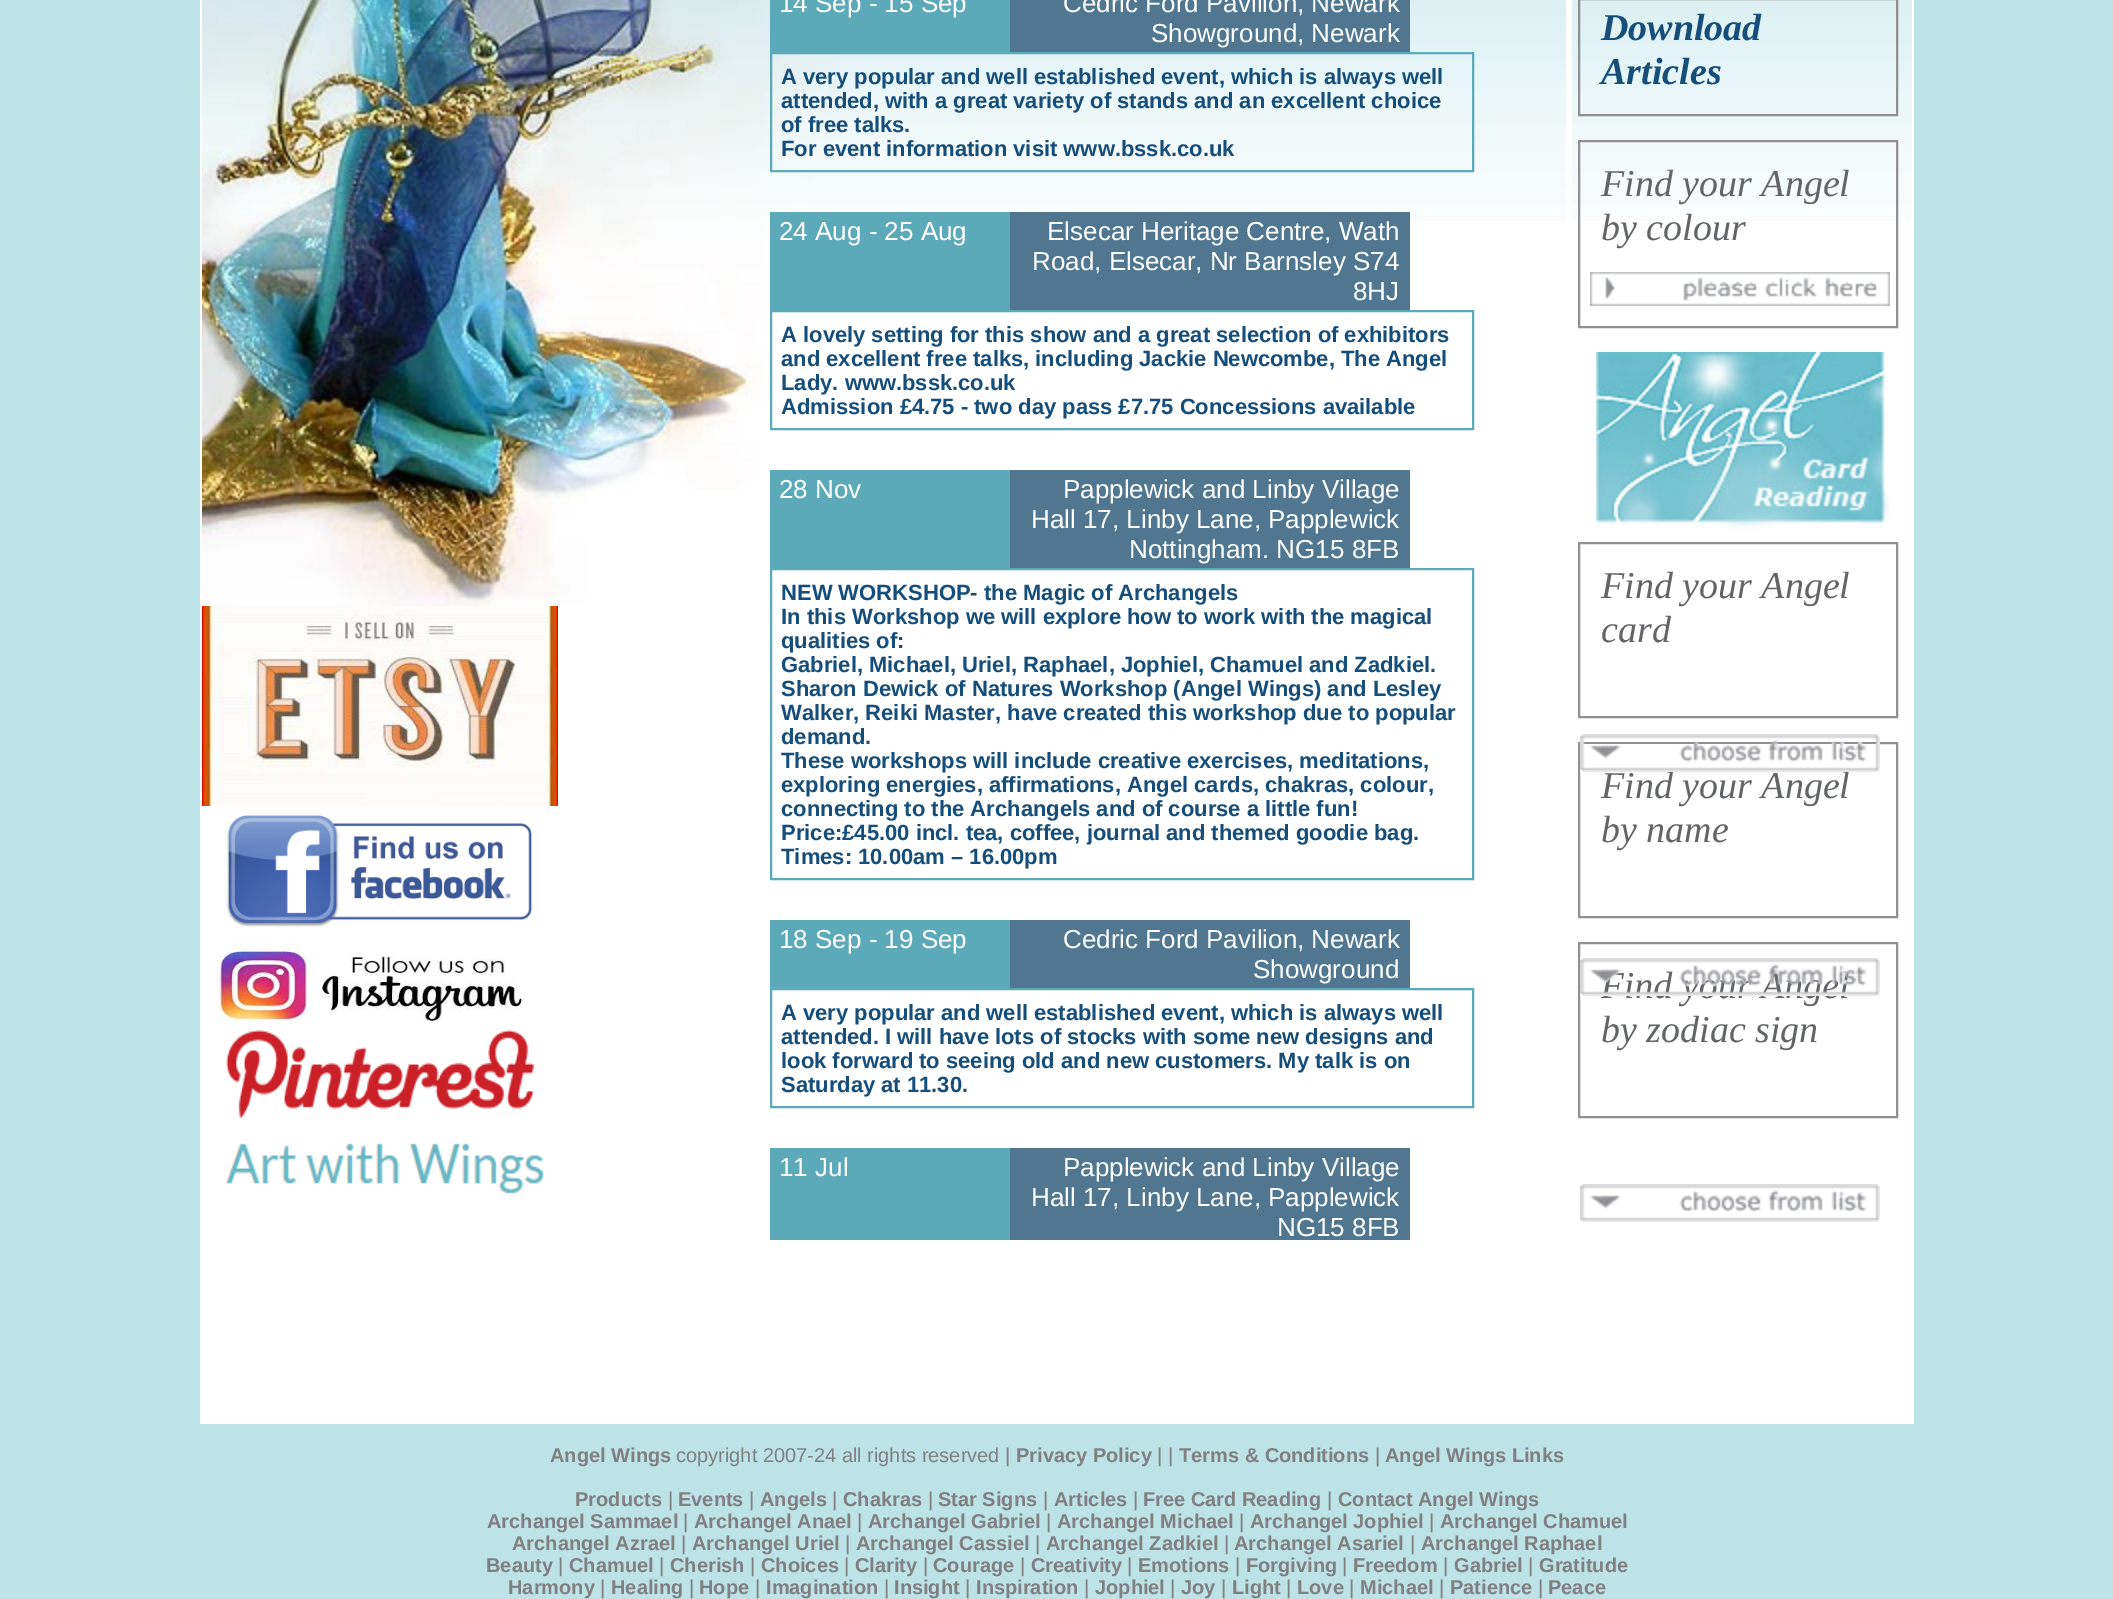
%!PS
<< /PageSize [2113 1599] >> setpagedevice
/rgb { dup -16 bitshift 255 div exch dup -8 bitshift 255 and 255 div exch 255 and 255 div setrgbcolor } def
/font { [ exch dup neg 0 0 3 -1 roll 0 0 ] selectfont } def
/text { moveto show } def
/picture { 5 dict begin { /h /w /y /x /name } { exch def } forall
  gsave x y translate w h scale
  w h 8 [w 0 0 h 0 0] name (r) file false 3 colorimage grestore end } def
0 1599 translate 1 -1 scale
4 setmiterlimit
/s1 { /LiberationSans-Regular 26 font 16#FFFFFF rgb } def
/s2 { /LiberationSans-Bold 22 font 16#154E7B rgb } def
/s3 { /LiberationSerif-BoldItalic 38 font 16#154E7B rgb } def
/s4 { /LiberationSerif-Italic 38 font 16#636466 rgb } def
/s5 { /LiberationSans-Bold 20 font 16#808080 rgb } def
/s6 { /LiberationSans-Regular 20 font 16#808080 rgb } def
16#BDE2E8 rgb
0 0 2113 1599 rectfill
16#FFFFFF rgb
200 0 1714 1424 rectfill
(pic1.raw) 202 0 384 606 picture
(pic2.raw) 586 0 178 491 picture
(pic3.raw) 764 0 802 221 picture
16#5CA9B9 rgb
770 0 240 52 rectfill
s1
(14 Sep - 15 Sep) 779 12 text
16#50778F rgb
1010 0 400 52 rectfill
s1
(Cedric Ford Pavilion, Newark) 1063 12 text
(Showground, Newark) 1151 42 text
16#5CA9B9 rgb
2 setlinewidth
771 53 702 118 rectstroke
s2
(A very popular and well established event, which is always well) 781 84 text
(attended, with a great variety of stands and an excellent choice) 781 108 text
(of free talks.) 781 132 text
(For event information visit www.bssk.co.uk) 781 156 text
16#5CA9B9 rgb
770 212 240 98 rectfill
s1
(24 Aug - 25 Aug) 779 240 text
16#50778F rgb
1010 212 400 98 rectfill
s1
(Elsecar Heritage Centre, Wath) 1047 240 text
(Road, Elsecar, Nr Barnsley S74) 1032 270 text
(8HJ) 1353 300 text
16#5CA9B9 rgb
771 311 702 118 rectstroke
s2
(A lovely setting for this show and a great selection of exhibitors) 781 342 text
(and excellent free talks, including Jackie Newcombe, The Angel) 781 366 text
(Lady. www.bssk.co.uk) 781 390 text
(Admission £4.75 - two day pass £7.75 Concessions available) 781 414 text
16#5CA9B9 rgb
770 470 240 98 rectfill
s1
(28 Nov) 779 498 text
16#50778F rgb
1010 470 400 98 rectfill
s1
(Papplewick and Linby Village) 1063 498 text
(Hall 17, Linby Lane, Papplewick) 1031 528 text
(Nottingham. NG15 8FB) 1129 558 text
16#5CA9B9 rgb
771 569 702 310 rectstroke
s2
(NEW WORKSHOP- the Magic of Archangels) 781 600 text
(In this Workshop we will explore how to work with the magical) 781 624 text
(qualities of:) 781 648 text
(Gabriel, Michael, Uriel, Raphael, Jophiel, Chamuel and Zadkiel.) 781 672 text
(Sharon Dewick of Natures Workshop \(Angel Wings\) and Lesley) 781 696 text
(Walker, Reiki Master, have created this workshop due to popular) 781 720 text
(demand.) 781 744 text
(These workshops will include creative exercises, meditations,) 781 768 text
(exploring energies, affirmations, Angel cards, chakras, colour,) 781 792 text
(connecting to the Archangels and of course a little fun!) 781 816 text
(Price:£45.00 incl. tea, coffee, journal and themed goodie bag.) 781 840 text
(Times: 10.00am – 16.00pm) 781 864 text
16#5CA9B9 rgb
770 920 240 68 rectfill
s1
(18 Sep - 19 Sep) 779 948 text
16#50778F rgb
1010 920 400 68 rectfill
s1
(Cedric Ford Pavilion, Newark) 1063 948 text
(Showground) 1253 978 text
16#5CA9B9 rgb
771 989 702 118 rectstroke
s2
(A very popular and well established event, which is always well) 781 1020 text
(attended. I will have lots of stocks with some new designs and) 781 1044 text
(look forward to seeing old and new customers. My talk is on) 781 1068 text
(Saturday at 11.30.) 781 1092 text
16#5CA9B9 rgb
770 1148 240 92 rectfill
s1
(11 Jul) 779 1176 text
16#50778F rgb
1010 1148 400 92 rectfill
s1
(Papplewick and Linby Village) 1063 1176 text
(Hall 17, Linby Lane, Papplewick) 1031 1206 text
(NG15 8FB) 1277 1236 text
(pic4.raw) 1572 0 340 221 picture
16#918F8F rgb
1579 -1 318 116 rectstroke
s3
(Download) 1601 40 text
(Articles) 1601 84 text
16#918F8F rgb
1579 141 318 186 rectstroke
s4
(Find your Angel) 1601 196 text
(by colour) 1601 240 text
(pic5.raw) 1590 272 300 34 picture
(pic6.raw) 1596 352 294 177 picture
16#918F8F rgb
1579 543 318 174 rectstroke
s4
(Find your Angel) 1601 598 text
(card) 1601 642 text
16#918F8F rgb
1579 743 318 174 rectstroke
s4
(Find your Angel) 1601 798 text
(by name) 1601 842 text
16#918F8F rgb
1579 943 318 174 rectstroke
s4
(Find your Angel) 1601 998 text
(by zodiac sign) 1601 1042 text
(pic7.raw) 202 606 356 200 picture
(pic8.raw) 226 815 306 112 picture
(pic9.raw) 216 942 311 79 picture
(pic10.raw) 226 1030 309 88 picture
(pic11.raw) 226 1143 319 51 picture
(pic12.raw) 1580 734 300 38 picture
(pic13.raw) 1580 958 300 38 picture
(pic14.raw) 1580 1184 300 38 picture
s5
(Angel Wings) 550 1462 text
s6
(copyright 2007-24 all rights reserved |) 676 1462 text
s5
(Privacy Policy) 1016 1462 text
s6
(| |) 1157 1462 text
s5
(Terms & Conditions) 1179 1462 text
s6
(|) 1375 1462 text
s5
(Angel Wings Links) 1385 1462 text
(Products) 575 1506 text
s6
(|) 668 1506 text
s5
(Events) 678 1506 text
s6
(|) 749 1506 text
s5
(Angels) 760 1506 text
s6
(|) 832 1506 text
s5
(Chakras) 843 1506 text
s6
(|) 928 1506 text
s5
(Star Signs) 938 1506 text
s6
(|) 1043 1506 text
s5
(Articles) 1054 1506 text
s6
(|) 1133 1506 text
s5
(Free Card Reading) 1143 1506 text
s6
(|) 1327 1506 text
s5
(Contact Angel Wings) 1338 1506 text
(Archangel Sammael) 487 1528 text
s6
(|) 683 1528 text
s5
(Archangel Anael) 694 1528 text
s6
(|) 857 1528 text
s5
(Archangel Gabriel) 868 1528 text
s6
(|) 1046 1528 text
s5
(Archangel Michael) 1057 1528 text
s6
(|) 1239 1528 text
s5
(Archangel Jophiel) 1250 1528 text
s6
(|) 1429 1528 text
s5
(Archangel Chamuel) 1440 1528 text
(Archangel Azrael) 512 1550 text
s6
(|) 681 1550 text
s5
(Archangel Uriel) 692 1550 text
s6
(|) 845 1550 text
s5
(Archangel Cassiel) 856 1550 text
s6
(|) 1035 1550 text
s5
(Archangel Zadkiel) 1046 1550 text
s6
(|) 1224 1550 text
s5
(Archangel Asariel) 1234 1550 text
s6
(|) 1410 1550 text
s5
(Archangel Raphael) 1421 1550 text
(Beauty) 486 1572 text
s6
(|) 558 1572 text
s5
(Chamuel) 569 1572 text
s6
(|) 659 1572 text
s5
(Cherish) 670 1572 text
s6
(|) 750 1572 text
s5
(Choices) 761 1572 text
s6
(|) 844 1572 text
s5
(Clarity) 855 1572 text
s6
(|) 923 1572 text
s5
(Courage) 933 1572 text
s6
(|) 1020 1572 text
s5
(Creativity) 1031 1572 text
s6
(|) 1127 1572 text
s5
(Emotions) 1138 1572 text
s6
(|) 1235 1572 text
s5
(Forgiving) 1246 1572 text
s6
(|) 1342 1572 text
s5
(Freedom) 1353 1572 text
s6
(|) 1443 1572 text
s5
(Gabriel) 1454 1572 text
s6
(|) 1528 1572 text
s5
(Gratitude) 1539 1572 text
(Harmony) 508 1594 text
s6
(|) 600 1594 text
s5
(Healing) 611 1594 text
s6
(|) 689 1594 text
s5
(Hope) 699 1594 text
s6
(|) 755 1594 text
s5
(Imagination) 766 1594 text
s6
(|) 884 1594 text
s5
(Insight) 894 1594 text
s6
(|) 965 1594 text
s5
(Inspiration) 976 1594 text
s6
(|) 1084 1594 text
s5
(Jophiel) 1095 1594 text
s6
(|) 1170 1594 text
s5
(Joy) 1181 1594 text
s6
(|) 1221 1594 text
s5
(Light) 1232 1594 text
s6
(|) 1286 1594 text
s5
(Love) 1297 1594 text
s6
(|) 1349 1594 text
s5
(Michael) 1360 1594 text
s6
(|) 1439 1594 text
s5
(Patience) 1450 1594 text
s6
(|) 1538 1594 text
s5
(Peace) 1548 1594 text
showpage
